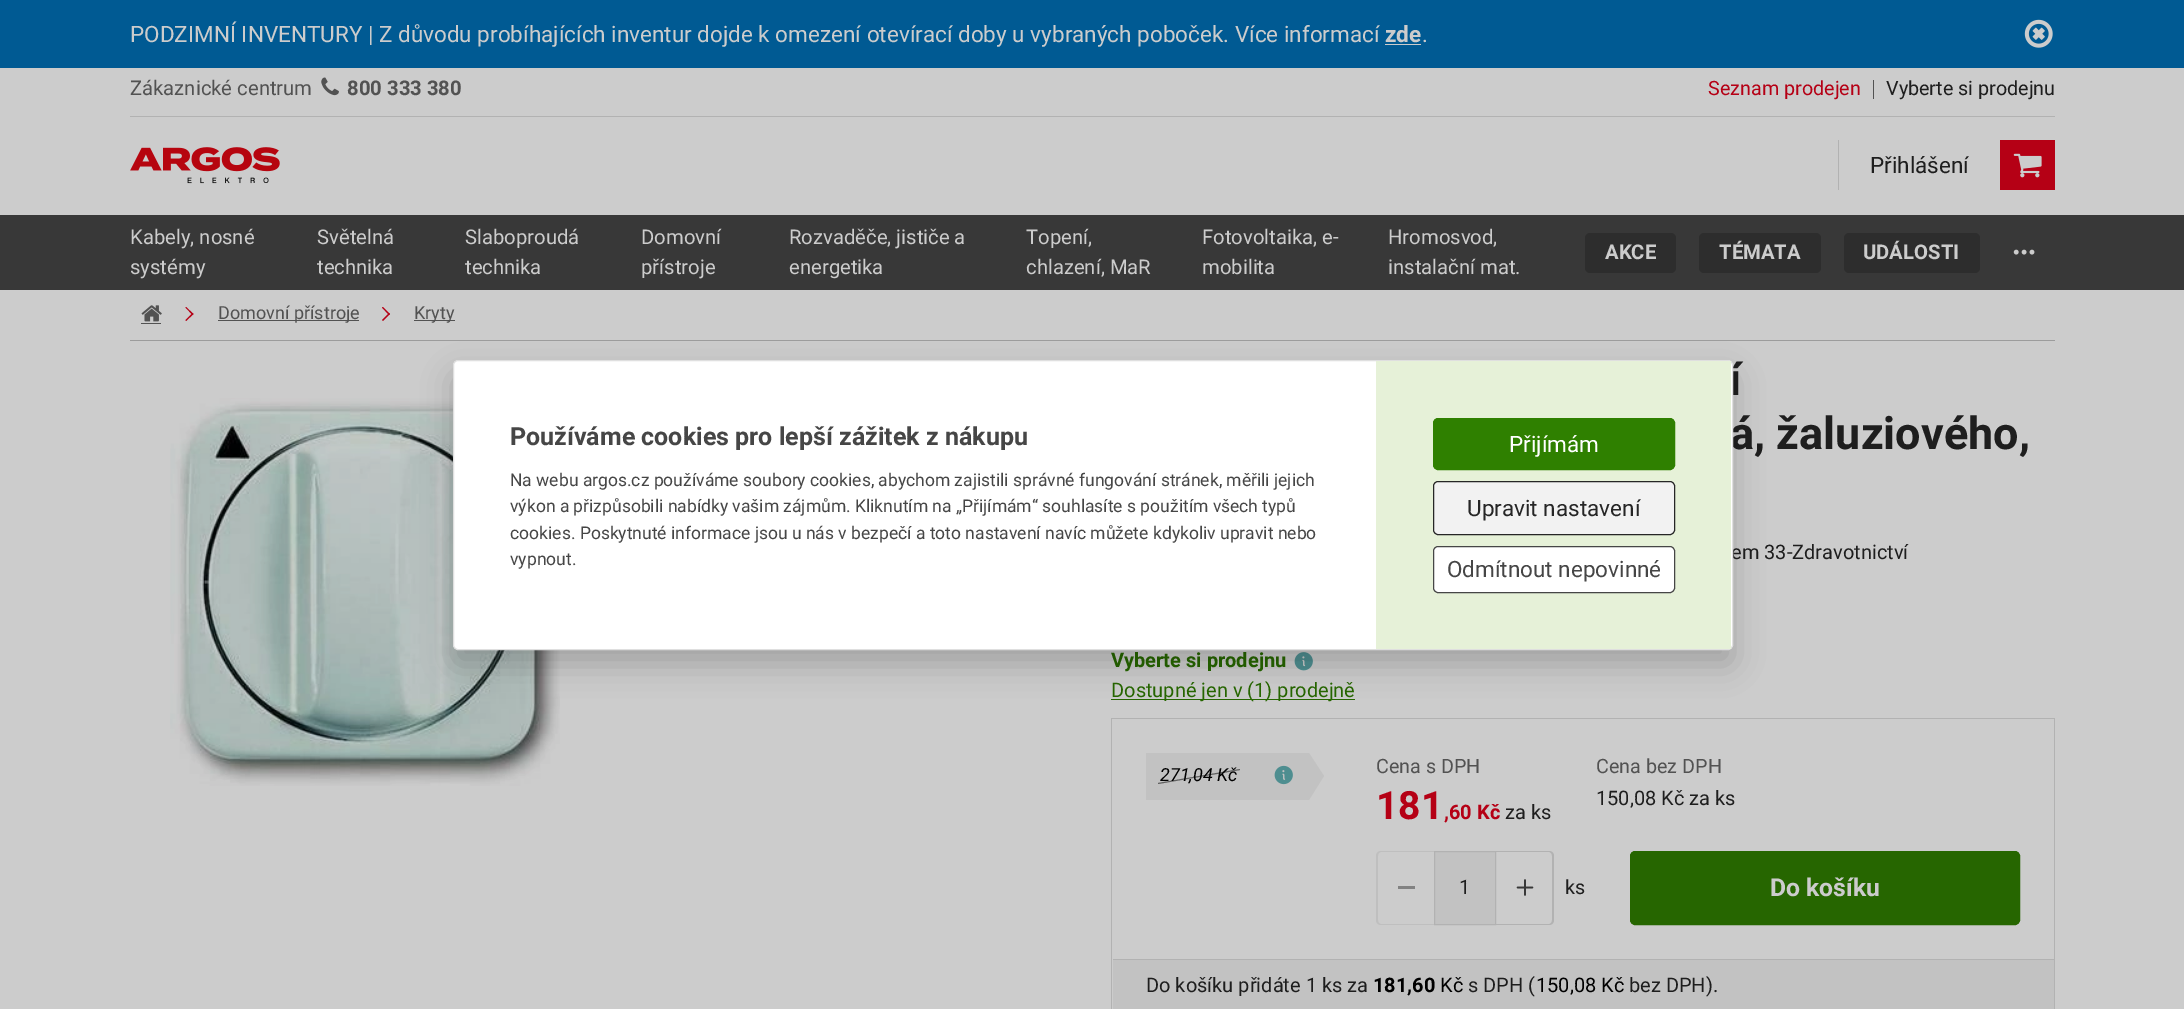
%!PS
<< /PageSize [2184 1009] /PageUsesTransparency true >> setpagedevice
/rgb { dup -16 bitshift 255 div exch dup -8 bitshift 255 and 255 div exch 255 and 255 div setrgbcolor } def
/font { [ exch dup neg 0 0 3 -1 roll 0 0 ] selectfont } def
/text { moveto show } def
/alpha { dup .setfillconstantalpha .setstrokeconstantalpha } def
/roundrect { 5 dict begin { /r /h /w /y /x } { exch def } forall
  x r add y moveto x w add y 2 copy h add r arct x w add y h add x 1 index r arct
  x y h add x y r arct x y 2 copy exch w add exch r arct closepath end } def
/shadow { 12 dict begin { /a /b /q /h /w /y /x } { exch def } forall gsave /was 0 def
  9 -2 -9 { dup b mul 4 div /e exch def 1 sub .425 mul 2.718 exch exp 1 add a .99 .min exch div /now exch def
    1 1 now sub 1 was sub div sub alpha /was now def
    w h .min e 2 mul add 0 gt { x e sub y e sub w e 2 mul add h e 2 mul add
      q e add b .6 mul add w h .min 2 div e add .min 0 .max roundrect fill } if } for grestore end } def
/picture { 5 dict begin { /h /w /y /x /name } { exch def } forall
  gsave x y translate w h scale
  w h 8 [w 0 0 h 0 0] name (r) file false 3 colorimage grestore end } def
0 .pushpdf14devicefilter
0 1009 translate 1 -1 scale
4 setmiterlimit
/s1 { /Roboto-Regular 22.5 font 16#CCCCCC rgb } def
/s2 { /Roboto-Bold 22.5 font 16#CCCCCC rgb } def
/s3 { /Roboto-Regular 20.25 font 16#525252 rgb } def
/s4 { /Roboto-Bold 20.25 font 16#525252 rgb } def
/s5 { /Roboto-Regular 19.75 font 16#B50015 rgb } def
/s6 { /Roboto-Regular 19.75 font 16#1E1E1E rgb } def
/s7 { /Roboto-Regular 22.5 font 16#1E1E1E rgb } def
/s8 { /Roboto-Regular 20.25 font 16#CCCCCC rgb } def
/s9 { /Roboto-Bold 20.25 font 16#CCCCCC rgb } def
/s10 { /Roboto-Regular 18 font 16#525252 rgb } def
/s11 { /Roboto-Bold 45 font 16#1E1E1E rgb } def
/s12 { /Roboto-Regular 20 font 16#1E1E1E rgb } def
/s13 { /Roboto-Bold 20 font 16#266600 rgb } def
/s14 { /Roboto-Regular 20 font 16#266600 rgb } def
/s15 { /Roboto-Italic 18 font 16#000000 rgb } def
/s16 { /Roboto-Regular 19.75 font 16#525252 rgb } def
/s17 { /Roboto-Bold 39 font 16#B50015 rgb } def
/s18 { /Roboto-Bold 20 font 16#B50015 rgb } def
/s19 { /Roboto-Bold 24.75 font 16#CCCCCC rgb } def
/s20 { /Roboto-Bold 20 font 16#000000 rgb } def
/s21 { /Roboto-Regular 20 font 16#000000 rgb } def
/s22 { /Roboto-Bold 25 font 16#464646 rgb } def
/s23 { /Roboto-Regular 17.5 font 16#464646 rgb } def
/s24 { /Roboto-Regular 22.5 font 16#FFFFFF rgb } def
/s25 { /Roboto-Regular 22.5 font 16#262626 rgb } def
/s26 { /Roboto-Regular 22.5 font 16#464646 rgb } def
16#CCCCCC rgb
0 0 2184 1009 rectfill
16#005A93 rgb
0 0 2184 68 rectfill
s1
(PODZIMNÍ INVENTURY | Z důvodu probíhajících inventur dojde k omezení otevírací doby u vybraných poboček. Více informací) 130 42 text
s2
(zde) 1385 42 text
1385 44 36 1 rectfill
s1
(.) 1422 42 text
(pic1.raw) 2024 19 29 29 picture
16#B2B2B2 rgb
130 116 1925 1 rectfill
s3
(Zákaznické centrum) 130 95 text
(pic2.raw) 321 77 18 19 picture
s4
(800 333 380) 347 95 text
s5
(Seznam prodejen) 1708 95 text
16#525252 rgb
1873 80 1 19 rectfill
s6
(Vyberte si prodejnu) 1886 95 text
(pic3.raw) 130 147 150 37 picture
16#B2B2B2 rgb
1838 140 1 50 rectfill
s7
(Přihlášení) 1870 173 text
16#B50015 rgb
2000 140 55 50 rectfill
(pic4.raw) 2013 153 29 25 picture
16#383838 rgb
0 215 2184 75 rectfill
s8
(Kabely, nosné) 130 244 text
(systémy) 130 274 text
(Světelná) 317 244 text
(technika) 317 274 text
(Slaboproudá) 465 244 text
(technika) 465 274 text
(Domovní) 641 244 text
(přístroje) 641 274 text
(Rozvaděče, jističe a) 789 244 text
(energetika) 789 274 text
(Topení,) 1026 244 text
(chlazení, MaR) 1026 274 text
(Fotovoltaika, e-) 1202 244 text
(mobilita) 1202 274 text
(Hromosvod,) 1388 244 text
(instalační mat.) 1388 274 text
16#2D2D2D rgb
1585 233 91 40 5 roundrect fill
s9
(AKCE) 1605 259 text
16#2D2D2D rgb
1699 233 122 40 5 roundrect fill
s9
(TÉMATA) 1719 259 text
16#2D2D2D rgb
1844 233 136 40 5 roundrect fill
s9
(UDÁLOSTI) 1863 259 text
(pic5.raw) 2013 249 22 6 picture
16#9C9C9C rgb
130 340 1925 1 rectfill
16#525252 rgb
141 323 20 1 rectfill
(pic6.raw) 141 305 21 17 picture
16#B50015 rgb
185.5 307.5 moveto 186 307 lineto 193.5 314 lineto 192.5 315 lineto closepath fill
185.5 320 moveto 192.5 313 lineto 193.5 314 lineto 186 321 lineto closepath fill
16#525252 rgb
218 320 141 1 rectfill
s10
(Domovní přístroje) 218 319 text
16#B50015 rgb
382 307.5 moveto 383 307 lineto 390 314 lineto 389 315 lineto closepath fill
382 320 moveto 389 313 lineto 390 314 lineto 383 321 lineto closepath fill
16#525252 rgb
414 320 41 1 rectfill
(Kryty) 414 319 text
(pic7.raw) 170 398 390 388 picture
s11
(í) 1729 395 text
(á, žaluziového,) 1730 449 text
s12
(em 33-Zdravotnictví) 1731 559 text
s13
(Vyberte si prodejnu) 1111 667 text
(pic8.raw) 1294 652 19 19 picture
1111 699 244 1 rectfill
s14
(Dostupné jen v \(1\) prodejně) 1111 697 text
16#B2B2B2 rgb
1111 718 944 1 rectfill
2054 718 1 291 rectfill
1111 718 1 291 rectfill
16#C2C2C2 rgb
1146 753 163 47 rectfill
s15
(271,04 Kč) 1160 781 text
0.5 alpha
1158 783 moveto 1240 769 lineto 1240 770 lineto 1158 784 lineto closepath fill
1 alpha
(pic9.raw) 1274 765 19 20 picture
16#C2C2C2 rgb
1309 753 moveto 1309 800 lineto 1324 776 lineto closepath fill
s16
(Cena s DPH) 1376 773 text
s17
(181) 1376 819 text
s18
(,60 Kč) 1444 819 text
s12
(za ks) 1505 819 text
s16
(Cena bez DPH) 1596 773 text
s12
(150,08 Kč za ks) 1596 805 text
16#BFBFBF rgb
1381 851 moveto 1434 851 lineto 1434 925 lineto 1381 925 lineto 1378 925 1376 923 1376 920 curveto 1376 856 lineto 1376 853 1378 851 1381 851 curveto closepath 1381 852 moveto 1434 852 lineto 1434 924 lineto 1381 924 lineto 1379 924 1378 922 1378 920 curveto 1378 856 lineto 1378 854 1379 852 1381 852 curveto closepath eofill
16#828282 rgb
1398 886 17 3 rectfill
16#C2C2C2 rgb
1434.5 851.5 moveto 1495.5 851.5 lineto 1495.5 924.5 lineto 1434.5 924.5 lineto closepath gsave fill grestore
16#B2B2B2 rgb
stroke
s12
(1) 1459 894 text
16#B2B2B2 rgb
1496 851 moveto 1549 851 lineto 1552 851 1554 853 1554 856 curveto 1554 920 lineto 1554 923 1552 925 1549 925 curveto 1496 925 lineto closepath 1496 852 moveto 1549 852 lineto 1551 852 1552 854 1552 856 curveto 1552 920 lineto 1552 922 1551 924 1549 924 curveto 1496 924 lineto closepath eofill
(pic10.raw) 1516 879 18 17 picture
s6
(ks) 1565 894 text
16#266600 rgb
1630.5 851.5 389 73 4.5 roundrect gsave fill grestore
stroke
s19
(Do košíku) 1770 896 text
16#C2C2C2 rgb
1113 960 941 49 rectfill
16#B2B2B2 rgb
1113 959 941 1 rectfill
s12
(Do košíku přidáte 1 ks za) 1146 992 text
s20
(181,60) 1373 992 text
s21
(Kč) 1440 992 text
s12
(s DPH \() 1468 992 text
s21
(150,08 Kč) 1536 992 text
s12
(bez DPH\).) 1629 992 text
16#000000 rgb
453 375 1280 290 5 15 0.2 shadow
16#FFFFFF rgb
453.5 360.5 1279 289 4.5 roundrect gsave fill grestore
16#DFDFDF rgb
stroke
s22
(Používáme cookies pro lepší zážitek z nákupu) 510 445 text
s23
(Na webu argos.cz používáme soubory cookies, abychom zajistili správné fungování stránek, měřili jejich) 510 486 text
(výkon a přizpůsobili nabídky vašim zájmům. Kliknutím na „Přijímám“ souhlasíte s použitím všech typů) 510 512 text
(cookies. Poskytnuté informace jsou u nás v bezpečí a toto nastavení navíc můžete kdykoliv upravit nebo) 510 539 text
(vypnout.) 510 565 text
16#E6F1D8 rgb
1376 361 355 288 rectfill
16#2F8000 rgb
1433.5 418.5 241 51 4.5 roundrect gsave fill grestore
stroke
s24
(Přijímám) 1509 452 text
16#F2F2F2 rgb
1433.5 481.5 241 53 4.5 roundrect gsave fill grestore
16#262626 rgb
stroke
(Upravit nastavení) 1467 516 text
16#FFFFFF rgb
1433.5 546.5 241 46 4.5 roundrect gsave fill grestore
16#464646 rgb
stroke
(Odmítnout nepovinné) 1447 577 text
.poppdf14devicefilter showpage
